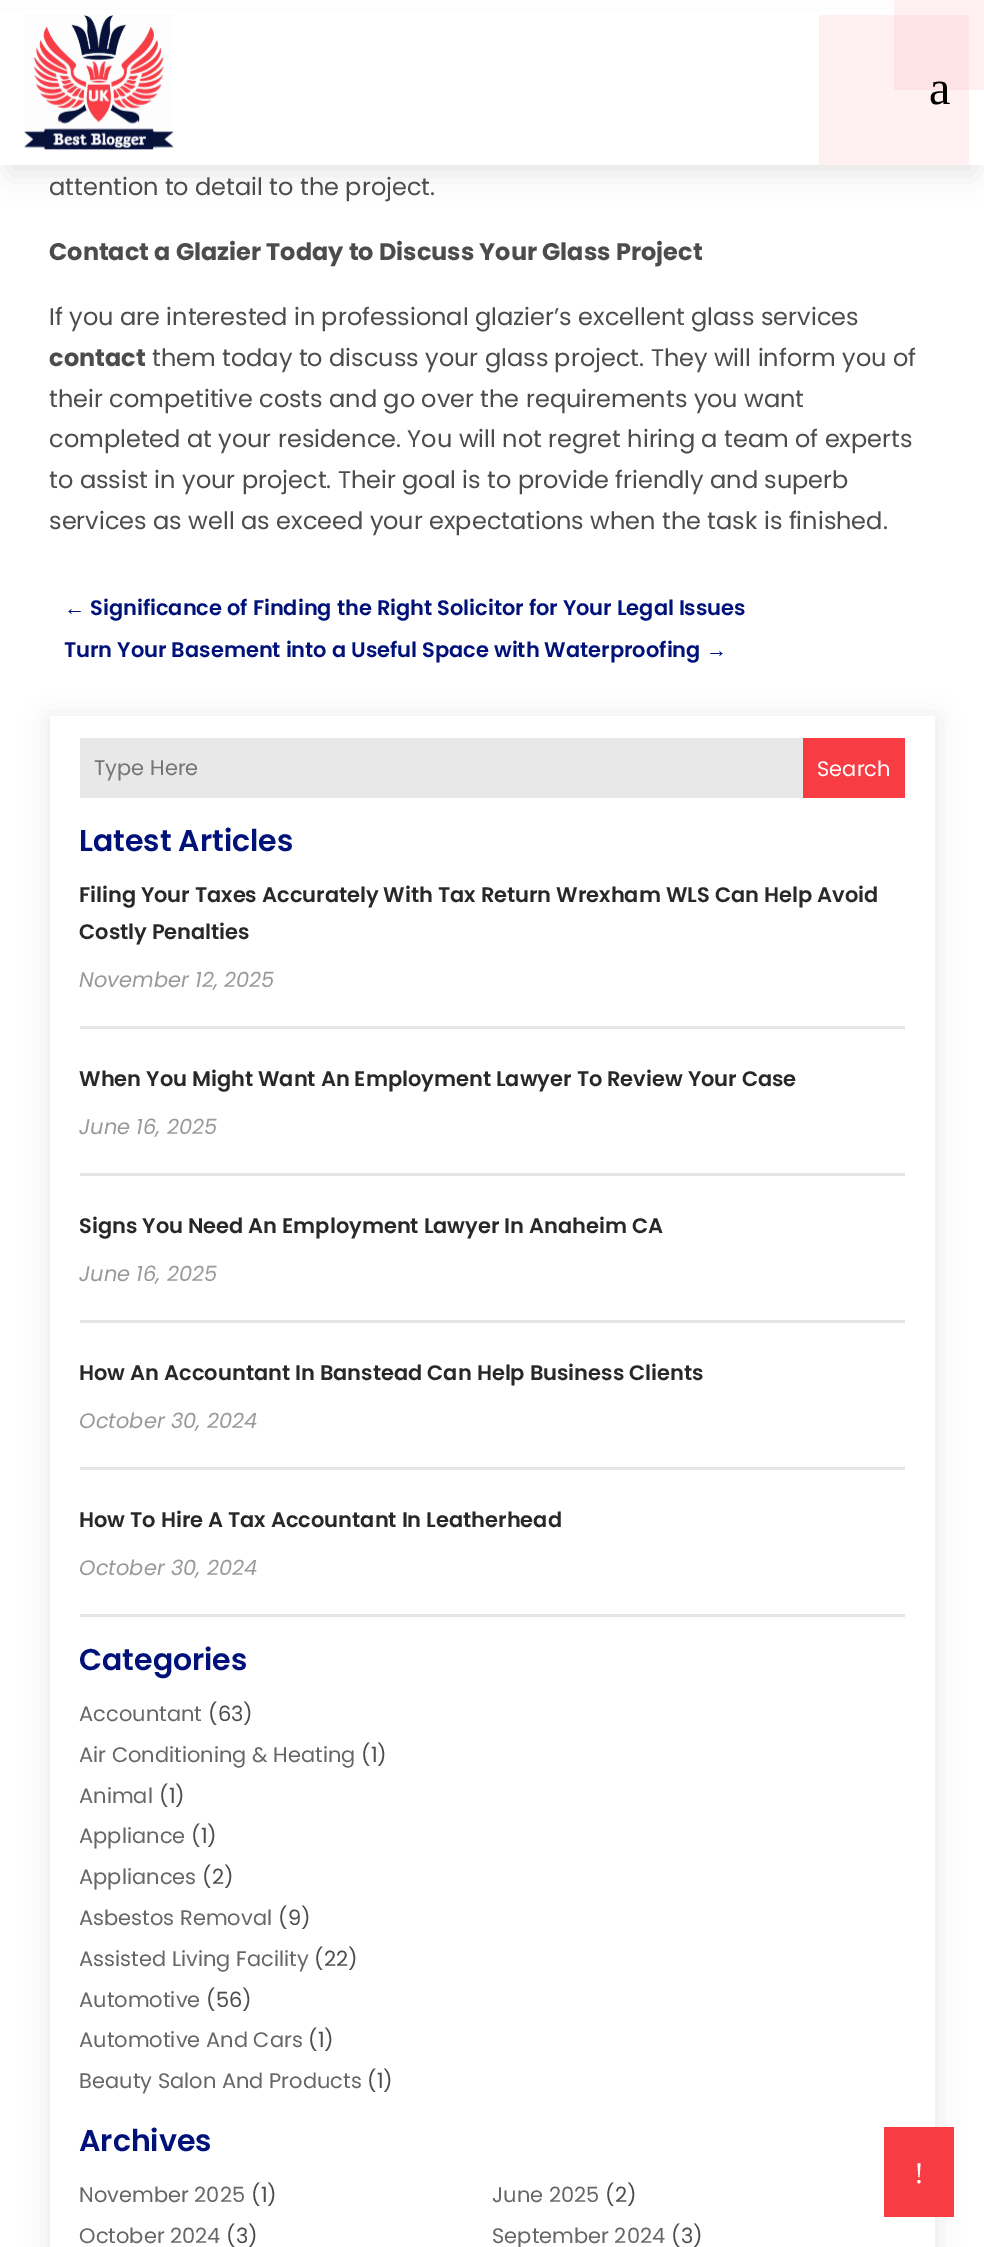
%!PS
<< /PageSize [984 2247] /PageUsesTransparency true >> setpagedevice
/rgb { dup -16 bitshift 255 div exch dup -8 bitshift 255 and 255 div exch 255 and 255 div setrgbcolor } def
/font { [ exch dup neg 0 0 3 -1 roll 0 0 ] selectfont } def
/text { moveto show } def
/alpha { dup .setfillconstantalpha .setstrokeconstantalpha } def
/roundrect { 5 dict begin { /r /h /w /y /x } { exch def } forall
  x r add y moveto x w add y 2 copy h add r arct x w add y h add x 1 index r arct
  x y h add x y r arct x y 2 copy exch w add exch r arct closepath end } def
/shadow { 12 dict begin { /a /b /q /h /w /y /x } { exch def } forall gsave /was 0 def
  9 -2 -9 { dup b mul 4 div /e exch def 1 sub .425 mul 2.718 exch exp 1 add a .99 .min exch div /now exch def
    1 1 now sub 1 was sub div sub alpha /was now def
    w h .min e 2 mul add 0 gt { x e sub y e sub w e 2 mul add h e 2 mul add
      q e add b .6 mul add w h .min 2 div e add .min 0 .max roundrect fill } if } for grestore end } def
/picture { 5 dict begin { /h /w /y /x /name } { exch def } forall
  gsave x y translate w h scale
  w h 8 [w 0 0 h 0 0] name (r) file false 3 colorimage grestore end } def
0 .pushpdf14devicefilter
0 2247 translate 1 -1 scale
4 setmiterlimit
/s1 { /LiberationSerif-Regular 48 font 16#000000 rgb } def
/s2 { /Poppins-Regular 24 font 16#4C4C4C rgb } def
/s3 { /Poppins-Bold 24 font 16#4C4C4C rgb } def
/s4 { /LiberationSans-Bold 21 font 16#00127A rgb } def
/s5 { /Poppins-SemiBold 21 font 16#00127A rgb } def
/s6 { /Poppins-Regular 21 font 16#757575 rgb } def
/s7 { /Poppins-Regular 21 font 16#FFFFFF rgb } def
/s8 { /Poppins-SemiBold 30 font 16#00127A rgb } def
/s9 { /Poppins-SemiBold 21 font 16#282828 rgb } def
/s10 { /Poppins-Italic 21 font 16#999999 rgb } def
/s11 { /Poppins-Regular 21 font 16#666666 rgb } def
/s12 { /Poppins-Regular 21 font 16#4C4C4C rgb } def
/s13 { /LiberationSerif-Regular 30 font 16#FFFFFF rgb } def
16#FFFFFF rgb
0 0 984 2247 rectfill
16#000000 rgb
9 27 966 147 0 13.5 0.1 shadow
16#FFFFFF rgb
0 10 984 155 rectfill
16#FFF1F2 rgb
894 0 90 90 rectfill
0.07 alpha
16#FA3B46 rgb
819 15 150 150 rectfill
1 alpha
(pic1.raw) 24 15 150 135 picture
s1
(a) 929 104 text
s2
(attention to detail to the project.) 49 195 text
s3
(Contact a Glazier Today to Discuss Your Glass Project) 49 260 text
s2
(If you are interested in professional glazier’s excellent glass services) 49 325 text
s3
(contact) 49 366 text
s2
(them today to discuss your glass project. They will inform you of) 152 366 text
(their competitive costs and go over the requirements you want) 49 407 text
(completed at your residence. You will not regret hiring a team of experts) 49 447 text
(to assist in your project. Their goal is to provide friendly and superb) 49 488 text
(services as well as exceed your expectations when the task is finished.) 49 529 text
s4
(←) 64 615 text
s5
(Significance of Finding the Right Solicitor for Your Legal Issues) 90 615 text
(Turn Your Basement into a Useful Space with Waterproofing) 64 657 text
s4
(→) 706 657 text
16#000000 rgb
50 719 885 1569 0 13.5 0.1 shadow
16#FFFFFF rgb
50 716 885 1531 rectfill
16#E8E8E8 rgb
80 738 723 60 rectfill
s6
(Type Here) 94 775 text
16#F83C43 rgb
803 738 102 60 rectfill
s7
(Search) 817 776 text
s8
(Latest Articles) 79 851 text
16#E5E5E5 rgb
80 1026 825 3 rectfill
s9
(Filing Your Taxes Accurately With Tax Return Wrexham WLS Can Help Avoid) 79 902 text
(Costly Penalties) 79 939 text
s10
(November 12, 2025) 79 987 text
16#E5E5E5 rgb
80 1173 825 3 rectfill
s9
(When You Might Want An Employment Lawyer To Review Your Case) 79 1086 text
s10
(June 16, 2025) 79 1134 text
16#E5E5E5 rgb
80 1320 825 3 rectfill
s9
(Signs You Need An Employment Lawyer In Anaheim CA) 79 1233 text
s10
(June 16, 2025) 79 1281 text
16#E5E5E5 rgb
80 1467 825 3 rectfill
s9
(How An Accountant In Banstead Can Help Business Clients) 79 1380 text
s10
(October 30, 2024) 79 1428 text
16#E5E5E5 rgb
80 1614 825 3 rectfill
s9
(How To Hire A Tax Accountant In Leatherhead) 79 1527 text
s10
(October 30, 2024) 79 1575 text
s8
(Categories) 79 1670 text
s11
(Accountant) 79 1721 text
s12
(\(63\)) 208 1721 text
s11
(Air Conditioning & Heating) 79 1762 text
s12
(\(1\)) 361 1762 text
s11
(Animal) 79 1803 text
s12
(\(1\)) 159 1803 text
s11
(Appliance) 79 1843 text
s12
(\(1\)) 191 1843 text
s11
(Appliances) 79 1884 text
s12
(\(2\)) 202 1884 text
s11
(Asbestos Removal) 79 1925 text
s12
(\(9\)) 278 1925 text
s11
(Assisted Living Facility) 79 1966 text
s12
(\(22\)) 314 1966 text
s11
(Automotive) 79 2007 text
s12
(\(56\)) 206 2007 text
s11
(Automotive And Cars) 79 2047 text
s12
(\(1\)) 308 2047 text
s11
(Beauty Salon And Products) 79 2088 text
s12
(\(1\)) 367 2088 text
s8
(Archives) 79 2151 text
s11
(November 2025) 79 2202 text
s12
(\(1\)) 251 2202 text
s11
(June 2025) 492 2202 text
s12
(\(2\)) 605 2202 text
s11
(October 2024) 79 2243 text
s12
(\(3\)) 226 2243 text
s11
(September 2024) 492 2243 text
s12
(\(3\)) 671 2243 text
16#F83C43 rgb
884 2127 70 90 rectfill
s13
(!) 914 2183 text
.poppdf14devicefilter showpage
